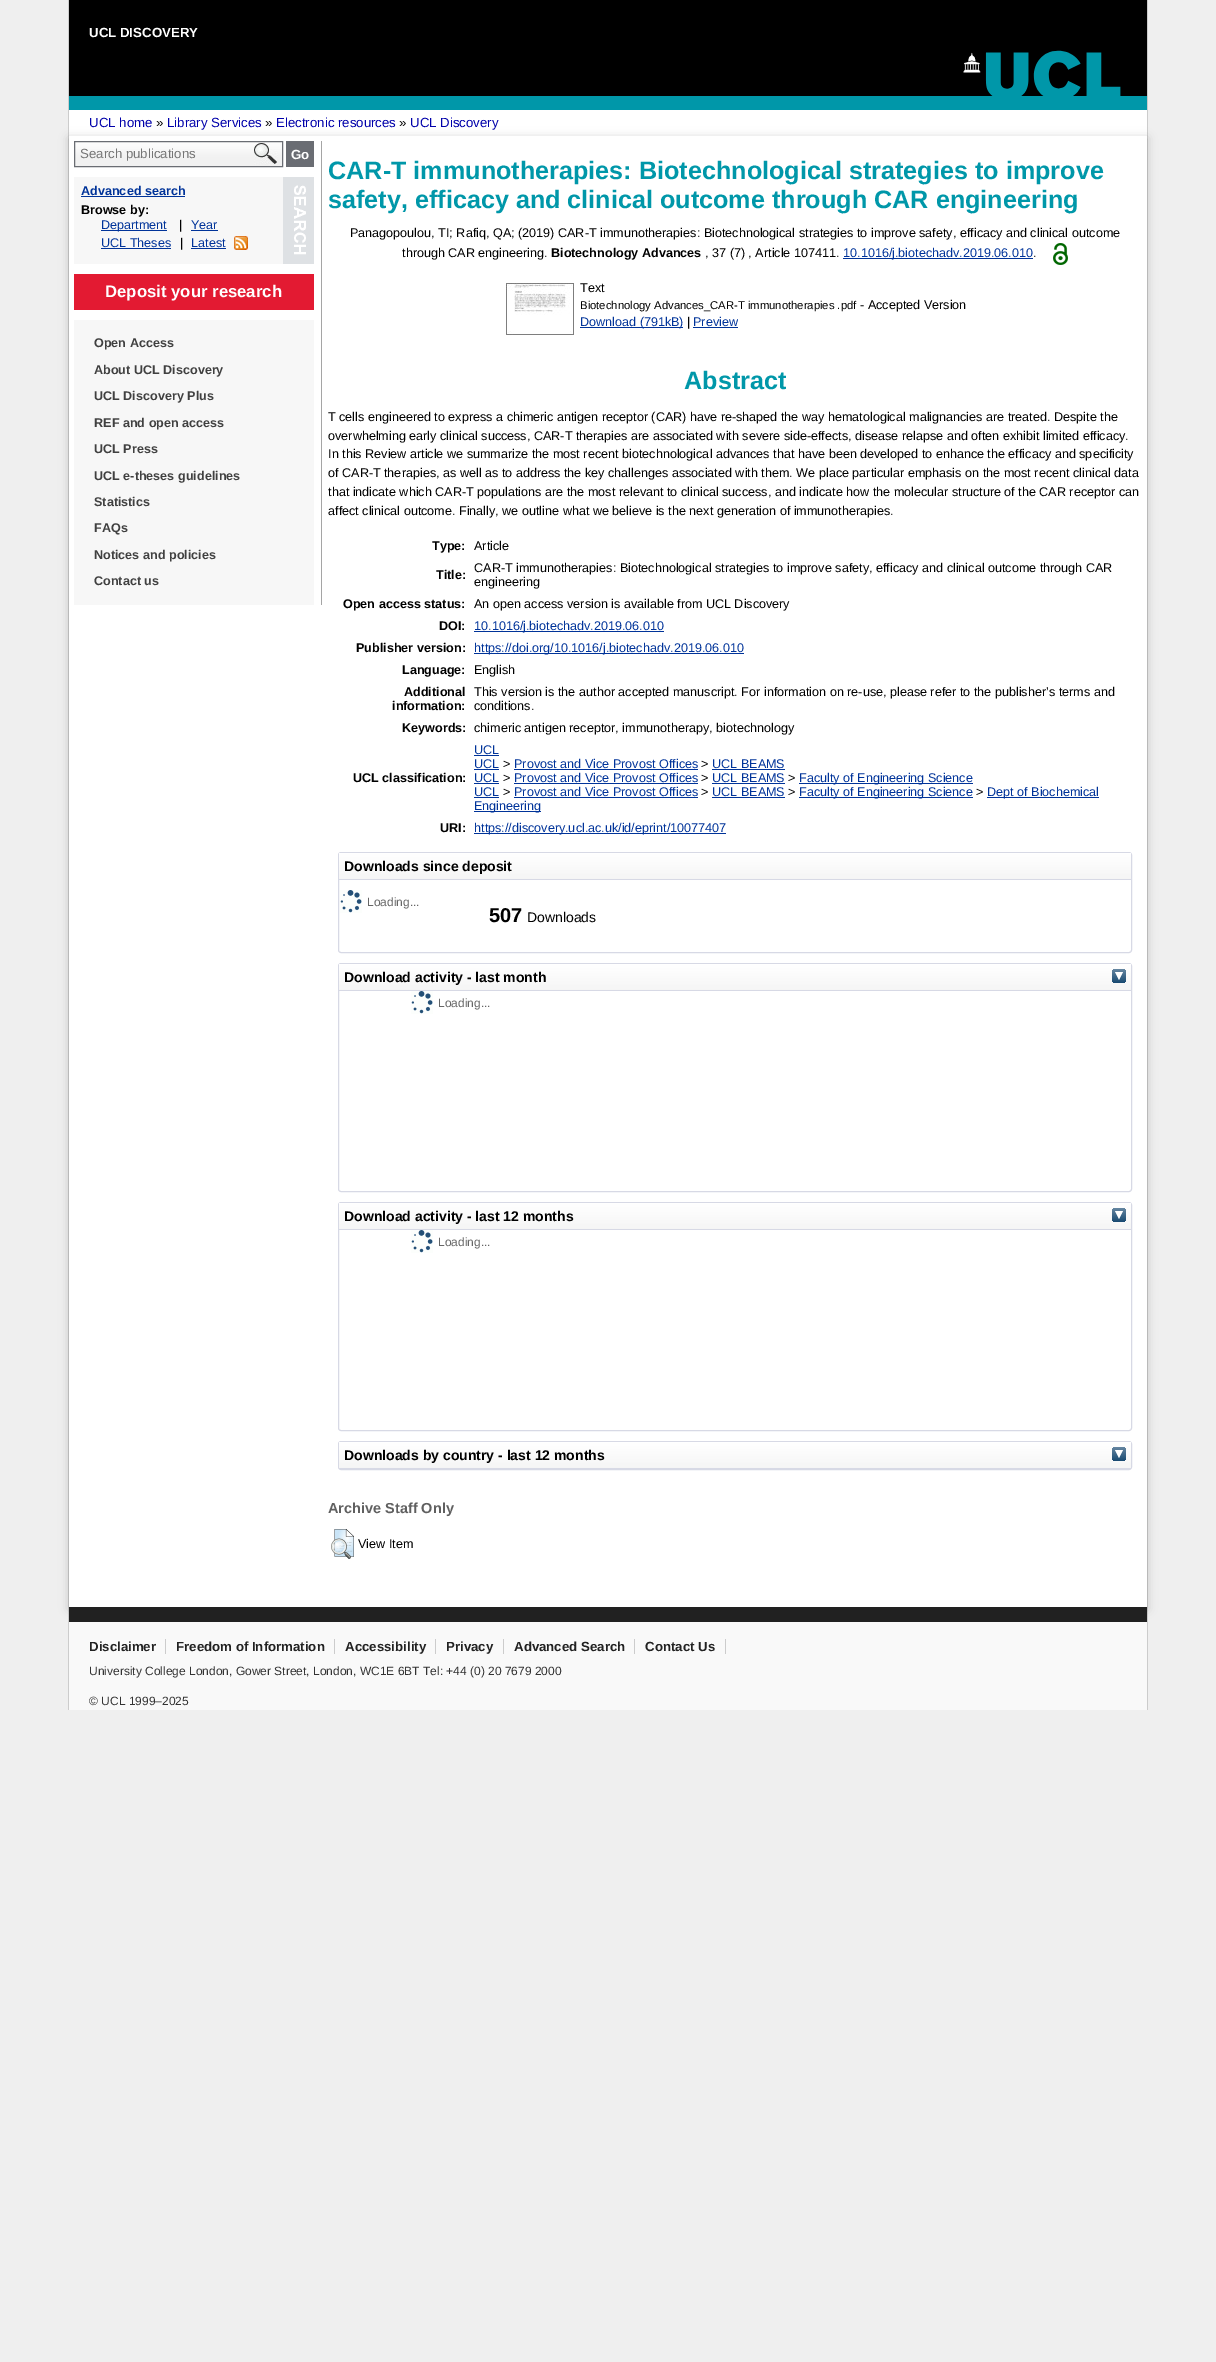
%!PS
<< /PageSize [1216 2362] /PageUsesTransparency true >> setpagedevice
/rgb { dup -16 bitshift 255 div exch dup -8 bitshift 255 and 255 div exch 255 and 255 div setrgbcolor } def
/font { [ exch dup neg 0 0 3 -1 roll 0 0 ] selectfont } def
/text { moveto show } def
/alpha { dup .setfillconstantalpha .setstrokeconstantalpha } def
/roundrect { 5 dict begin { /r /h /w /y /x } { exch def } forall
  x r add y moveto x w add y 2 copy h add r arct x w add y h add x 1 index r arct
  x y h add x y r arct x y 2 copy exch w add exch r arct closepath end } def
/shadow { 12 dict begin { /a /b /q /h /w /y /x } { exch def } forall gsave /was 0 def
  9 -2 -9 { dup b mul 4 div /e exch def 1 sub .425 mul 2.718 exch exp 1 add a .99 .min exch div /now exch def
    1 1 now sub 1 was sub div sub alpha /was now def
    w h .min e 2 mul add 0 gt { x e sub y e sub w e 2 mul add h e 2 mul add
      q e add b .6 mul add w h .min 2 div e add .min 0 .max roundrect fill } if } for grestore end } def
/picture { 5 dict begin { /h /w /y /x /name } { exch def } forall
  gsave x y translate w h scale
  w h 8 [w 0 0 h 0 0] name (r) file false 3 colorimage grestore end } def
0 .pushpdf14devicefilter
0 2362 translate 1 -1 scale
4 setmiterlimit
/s1 { /LiberationSans-Bold 13.25 font 16#FFFFFF rgb } def
/s2 { /LiberationSans-Regular 13.25 font 16#0000AA rgb } def
/s3 { /LiberationSans-Regular 13.25 font 16#000000 rgb } def
/s4 { /LiberationSans-Regular 13.25 font 16#757575 rgb } def
/s5 { /LiberationSans-Bold 12.6 font 16#003399 rgb } def
/s6 { /LiberationSans-Bold 12.6 font 16#000000 rgb } def
/s7 { /LiberationSans-Regular 12.6 font 16#003399 rgb } def
/s8 { /LiberationSans-Regular 12.6 font 16#000000 rgb } def
/s9 { /LiberationSans-Bold 16.75 font 16#FFFFFF rgb } def
/s10 { /LiberationSans-Bold 12.6 font 16#404040 rgb } def
/s11 { /LiberationSans-Bold 25.2 font 16#0097A9 rgb } def
/s12 { /LiberationSans-Regular 11.3 font 16#000000 rgb } def
/s13 { /LiberationSans-Bold 14 font 16#000000 rgb } def
/s14 { /LiberationSans-Regular 12 font 16#666666 rgb } def
/s15 { /LiberationSans-Bold 20 font 16#000000 rgb } def
/s16 { /LiberationSans-Regular 14 font 16#000000 rgb } def
/s17 { /LiberationSans-Bold 14.5 font 16#606060 rgb } def
/s18 { /LiberationSans-Bold 13.25 font 16#222222 rgb } def
/s19 { /LiberationSans-Regular 12 font 16#333333 rgb } def
16#EFEFEF rgb
0 0 1216 2362 rectfill
16#CCCCCC rgb
1147 0 1 1710 rectfill
68 0 1 1710 rectfill
16#0097A9 rgb
69 50 1078 60 rectfill
(pic1.raw) 69 0 1078 96 picture
s1
(UCL DISCOVERY) 89 37 text
69 110 1078 26 rectfill
16#505050 rgb
69 138 1078 1471 0 5 0.3 shadow
s2
(UCL home) 89 127 text
s3
(») 156 127 text
s2
(Library Services) 167 127 text
s3
(») 265 127 text
s2
(Electronic resources) 276 127 text
s3
(») 399 127 text
s2
(UCL Discovery) 410 127 text
16#FFFFFF rgb
69 136 1078 1471 rectfill
16#A5A5A5 rgb
321 141 1 464 rectfill
(pic2.raw) 75 142 207 24 picture
16#6A6D73 rgb
74.5 141.5 208 25 rectstroke
s4
(Search publications) 80 158 text
16#6A6D73 rgb
286 141 28 26 rectfill
s1
(Go) 291 159 text
16#F7F7F7 rgb
74 177 209 87 rectfill
(pic3.raw) 283 177 31 87 picture
s5
(Advanced search) 81 195 text
81 196 104 1 rectfill
s6
(Browse by:) 81 214 text
16#003399 rgb
101 230 66 1 rectfill
s7
(Department) 101 229 text
s8
(|) 179 229 text
s7
(Year) 191 229 text
191 230 27 1 rectfill
(UCL Theses) 101 247 text
101 248 70 1 rectfill
s8
(|) 180 247 text
s7
(Latest) 191 247 text
191 248 35 1 rectfill
(pic4.raw) 234 236 14 14 picture
16#E31A32 rgb
74 274 240 36 rectfill
s9
(Deposit your research) 105 297 text
16#F7F7F7 rgb
74 320 240 285 rectfill
s10
(Open Access) 94 347 text
(About UCL Discovery) 94 374 text
(UCL Discovery Plus) 94 400 text
(REF and open access) 94 427 text
(UCL Press) 94 453 text
(UCL e-theses guidelines) 94 480 text
(Statistics) 94 506 text
(FAQs) 94 532 text
(Notices and policies) 94 559 text
(Contact us) 94 585 text
s11
(CAR-T immunotherapies: Biotechnological strategies to improve) 328 179 text
(safety, efficacy and clinical outcome through CAR engineering) 328 208 text
s8
(Panagopoulou, TI; Rafiq, QA; \(2019\) CAR-T immunotherapies: Biotechnological strategies to improve safety, efficacy and clinical outcome) 350 237 text
(through CAR engineering.) 402 257 text
s6
(Biotechnology Advances) 551 257 text
s8
(, 37 \(7\) , Article 107411.) 705 257 text
16#003399 rgb
843 258 190 1 rectfill
(10.1016/j.biotechadv.2019.06.010) 843 257 text
s8
(.) 1033 257 text
(pic5.raw) 1053 243 15 22 picture
(pic6.raw) 506 283 68 52 picture
(Text) 580 292 text
s12
(Biotechnology Advances_CAR-T immunotherapies .pdf) 580 309 text
s8
(- Accepted Version) 860 309 text
16#003399 rgb
580 327 103 1 rectfill
(Download \(791kB\)) 580 326 text
s8
(|) 687 326 text
s7
(Preview) 693 326 text
693 327 45 1 rectfill
s11
(Abstract) 684 389 text
s8
(T cells engineered to express a chimeric antigen receptor \(CAR\) have re-shaped the way hematological malignancies are treated. Despite the) 328 421 text
(overwhelming early clinical success, CAR-T therapies are associated with severe side-effects, disease relapse and often exhibit limited efficacy.) 328 440 text
(In this Review article we summarize the most recent biotechnological advances that have been developed to enhance the efficacy and specificity) 328 458 text
(of CAR-T therapies, as well as to address the key challenges associated with them. We place particular emphasis on the most recent clinical data) 328 477 text
(that indicate which CAR-T populations are the most relevant to clinical success, and indicate how the molecular structure of the CAR receptor can) 328 496 text
(affect clinical outcome. Finally, we outline what we believe is the next generation of immunotherapies.) 328 515 text
s6
(Type:) 432 550 text
s8
(Article) 474 550 text
s6
(Title:) 436 579 text
s8
(CAR-T immunotherapies: Biotechnological strategies to improve safety, efficacy and clinical outcome through CAR) 474 572 text
(engineering) 474 586 text
s6
(Open access status:) 343 608 text
s8
(An open access version is available from UCL Discovery) 474 608 text
s6
(DOI:) 439 630 text
16#003399 rgb
474 631 190 1 rectfill
s7
(10.1016/j.biotechadv.2019.06.010) 474 630 text
s6
(Publisher version:) 356 652 text
16#003399 rgb
474 653 270 1 rectfill
s7
(https://doi.org/10.1016/j.biotechadv.2019.06.010) 474 652 text
s6
(Language:) 402 674 text
s8
(English) 474 674 text
s6
(Additional) 404 696 text
(information:) 392 710 text
s8
(This version is the author accepted manuscript. For information on re-use, please refer to the publisher’s terms and) 474 696 text
(conditions.) 474 710 text
s6
(Keywords:) 402 732 text
s8
(chimeric antigen receptor, immunotherapy, biotechnology) 474 732 text
s6
(UCL classification:) 353 782 text
s7
(UCL) 474 754 text
474 755 25 1 rectfill
(UCL) 474 768 text
474 769 25 1 rectfill
s8
(>) 503 768 text
s7
(Provost and Vice Provost Offices) 514 768 text
514 769 184 1 rectfill
s8
(>) 701 768 text
s7
(UCL BEAMS) 712 768 text
712 769 73 1 rectfill
(UCL) 474 782 text
474 783 25 1 rectfill
s8
(>) 503 782 text
s7
(Provost and Vice Provost Offices) 514 782 text
514 783 184 1 rectfill
s8
(>) 701 782 text
s7
(UCL BEAMS) 712 782 text
712 783 73 1 rectfill
s8
(>) 788 782 text
16#003399 rgb
799 783 174 1 rectfill
(Faculty of Engineering Science) 799 782 text
(UCL) 474 796 text
474 797 25 1 rectfill
s8
(>) 503 796 text
s7
(Provost and Vice Provost Offices) 514 796 text
514 797 184 1 rectfill
s8
(>) 701 796 text
s7
(UCL BEAMS) 712 796 text
712 797 73 1 rectfill
s8
(>) 788 796 text
16#003399 rgb
799 797 174 1 rectfill
(Faculty of Engineering Science) 799 796 text
s8
(>) 976 796 text
16#003399 rgb
987 797 112 1 rectfill
(Dept of Biochemical) 987 796 text
474 811 67 1 rectfill
(Engineering) 474 810 text
s6
(URI:) 440 832 text
16#003399 rgb
474 833 252 1 rectfill
s7
(https://discovery.ucl.ac.uk/id/eprint/10077407) 474 832 text
16#D7D9E5 rgb
338.5 852.5 793 100 2.5 roundrect stroke
(pic7.raw) 339 853 792 26 picture
339 879 792 1 rectfill
s13
(Downloads since deposit) 344 871 text
(pic8.raw) 340 890 22 23 picture
s14
(Loading...) 367 906 text
s15
(507) 489 922 text
s16
(Downloads) 527 922 text
16#D7D9E5 rgb
338.5 963.5 793 228 2.5 roundrect stroke
(pic7.raw) 339 964 792 26 picture
339 990 792 1 rectfill
s13
(Download activity - last month) 344 982 text
(pic9.raw) 1112 969 14 14 picture
(pic8.raw) 411 991 22 23 picture
s14
(Loading...) 438 1007 text
16#D7D9E5 rgb
338.5 1202.5 793 228 2.5 roundrect stroke
(pic7.raw) 339 1203 792 26 picture
339 1229 792 1 rectfill
s13
(Download activity - last 12 months) 344 1221 text
(pic9.raw) 1112 1208 14 14 picture
(pic8.raw) 411 1230 22 23 picture
s14
(Loading...) 438 1246 text
16#D7D9E5 rgb
338.5 1441.5 793 28 2.5 roundrect stroke
(pic7.raw) 339 1442 792 26 picture
339 1468 792 1 rectfill
s13
(Downloads by country - last 12 months) 344 1460 text
(pic9.raw) 1112 1447 14 14 picture
s17
(Archive Staff Only) 328 1513 text
(pic10.raw) 331 1529 23 30 picture
s8
(View Item) 358 1548 text
16#F9F9F9 rgb
69 1622 1078 88 rectfill
16#212121 rgb
69 1607 1078 15 rectfill
s18
(Disclaimer) 89 1651 text
16#CCCCCC rgb
165 1639 1 15 rectfill
s18
(Freedom of Information) 176 1651 text
16#CCCCCC rgb
334 1639 1 15 rectfill
s18
(Accessibility) 345 1651 text
16#CCCCCC rgb
435 1639 1 15 rectfill
s18
(Privacy) 446 1651 text
16#CCCCCC rgb
503 1639 1 15 rectfill
s18
(Advanced Search) 514 1651 text
16#CCCCCC rgb
634 1639 1 15 rectfill
s18
(Contact Us) 645 1651 text
16#CCCCCC rgb
725 1639 1 15 rectfill
s19
(University College London, Gower Street, London, WC1E 6BT Tel: +44 \(0\) 20 7679 2000) 89 1675 text
(© UCL 1999–2025) 89 1705 text
.poppdf14devicefilter showpage
